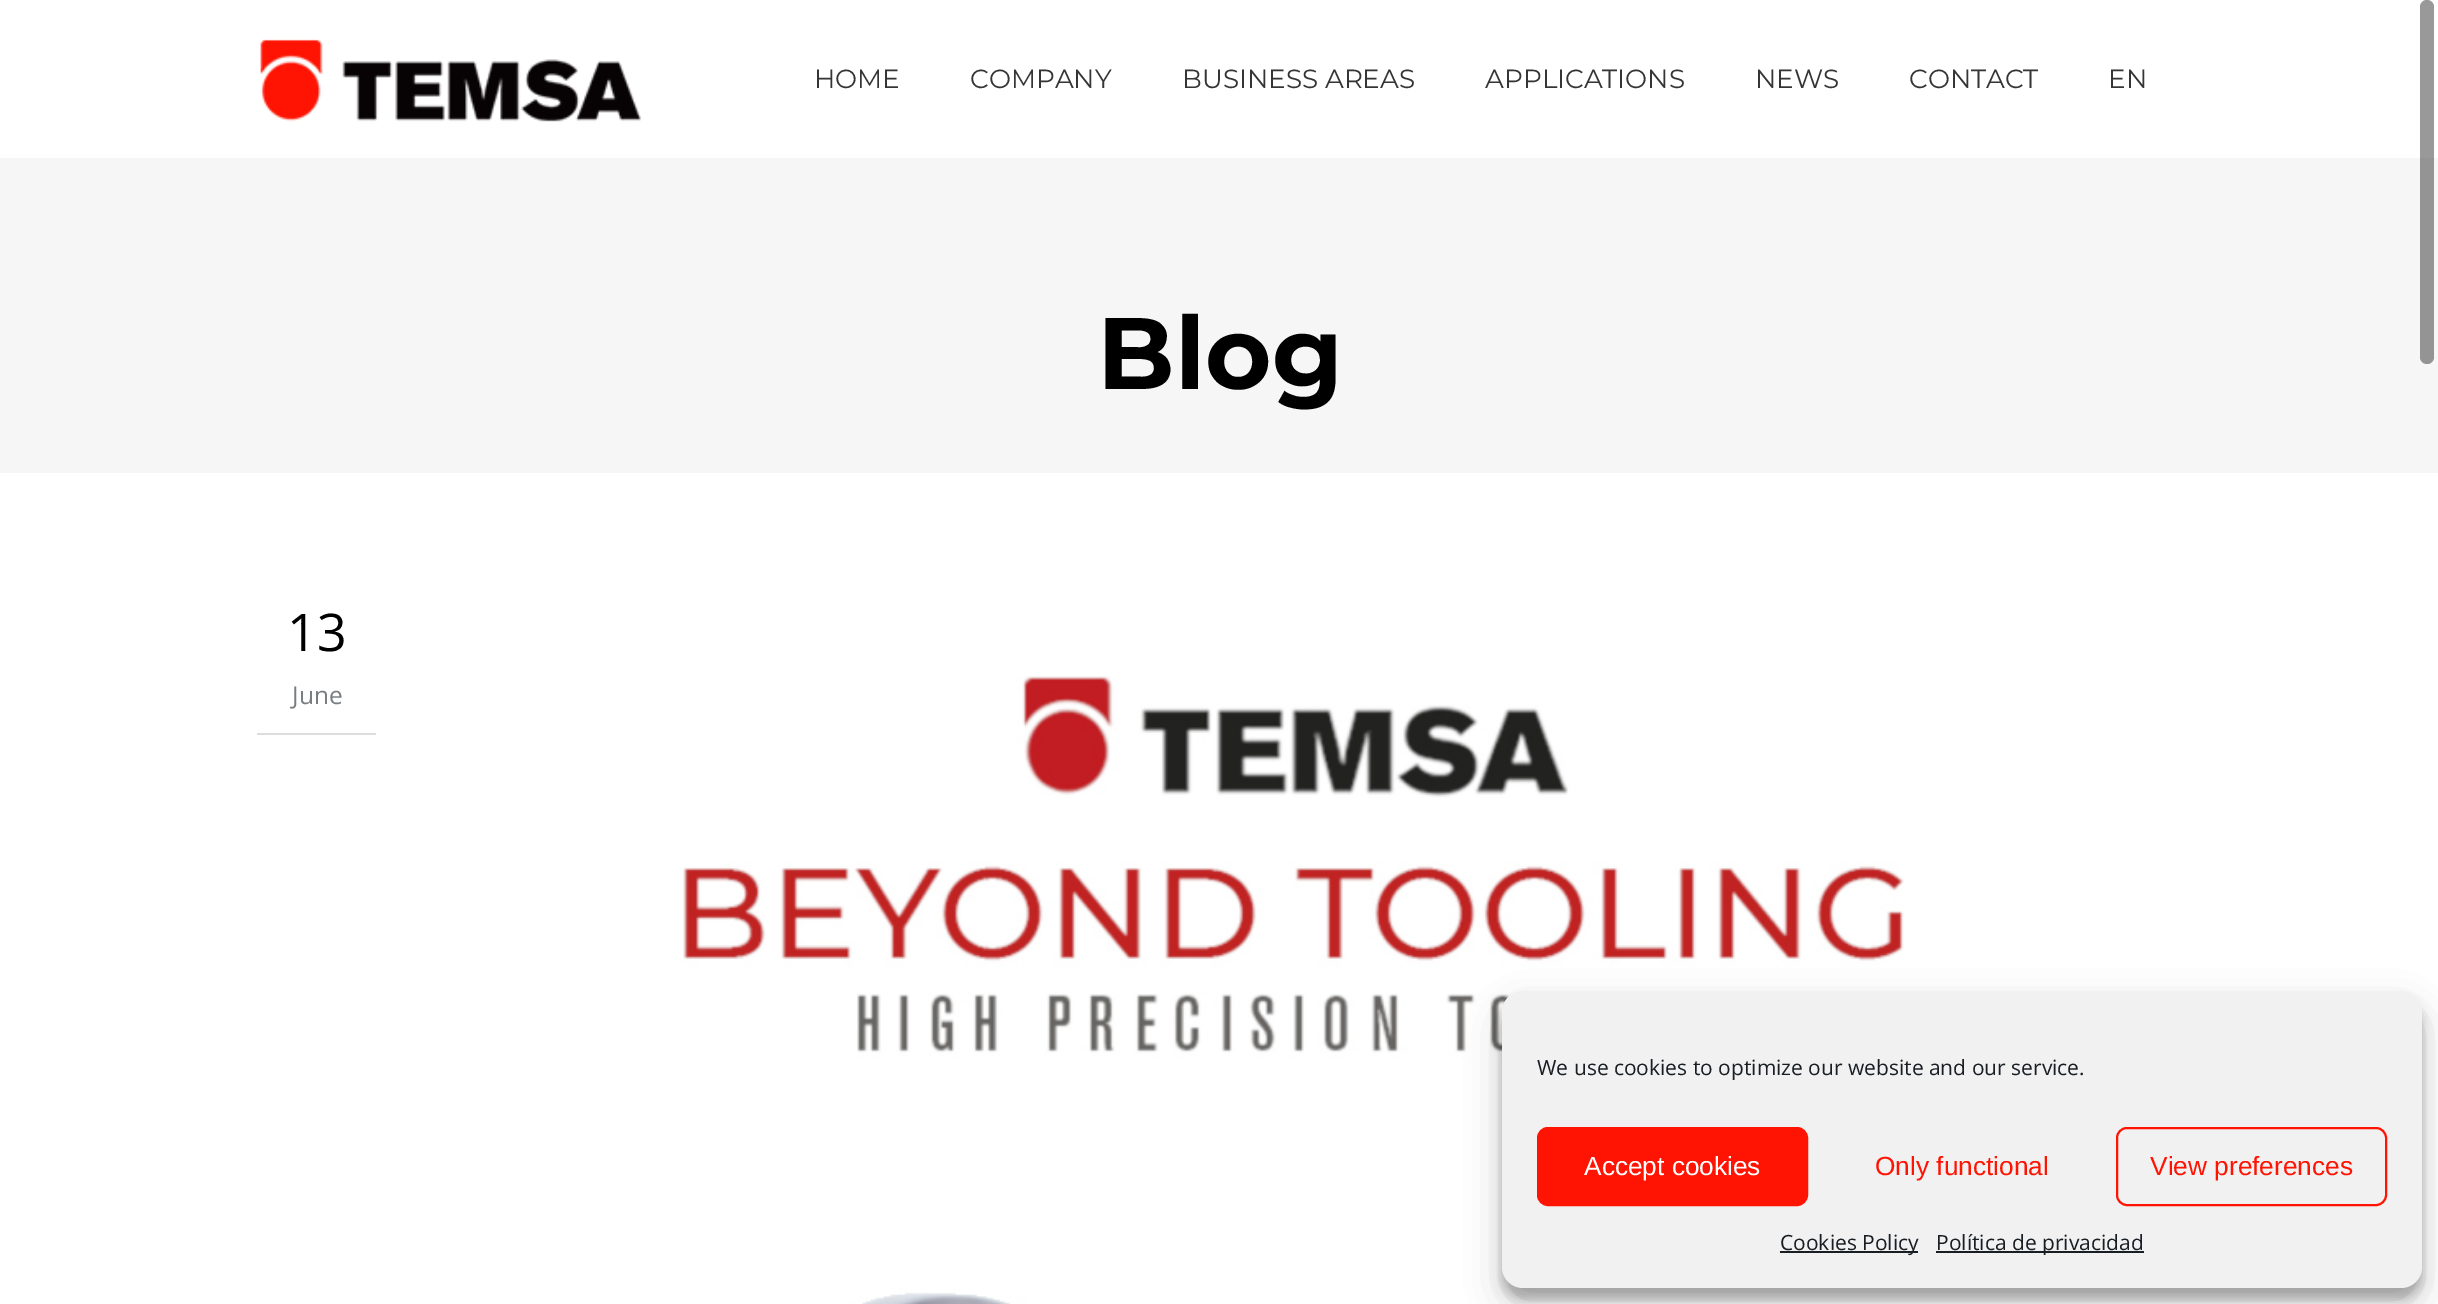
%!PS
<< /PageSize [2438 1304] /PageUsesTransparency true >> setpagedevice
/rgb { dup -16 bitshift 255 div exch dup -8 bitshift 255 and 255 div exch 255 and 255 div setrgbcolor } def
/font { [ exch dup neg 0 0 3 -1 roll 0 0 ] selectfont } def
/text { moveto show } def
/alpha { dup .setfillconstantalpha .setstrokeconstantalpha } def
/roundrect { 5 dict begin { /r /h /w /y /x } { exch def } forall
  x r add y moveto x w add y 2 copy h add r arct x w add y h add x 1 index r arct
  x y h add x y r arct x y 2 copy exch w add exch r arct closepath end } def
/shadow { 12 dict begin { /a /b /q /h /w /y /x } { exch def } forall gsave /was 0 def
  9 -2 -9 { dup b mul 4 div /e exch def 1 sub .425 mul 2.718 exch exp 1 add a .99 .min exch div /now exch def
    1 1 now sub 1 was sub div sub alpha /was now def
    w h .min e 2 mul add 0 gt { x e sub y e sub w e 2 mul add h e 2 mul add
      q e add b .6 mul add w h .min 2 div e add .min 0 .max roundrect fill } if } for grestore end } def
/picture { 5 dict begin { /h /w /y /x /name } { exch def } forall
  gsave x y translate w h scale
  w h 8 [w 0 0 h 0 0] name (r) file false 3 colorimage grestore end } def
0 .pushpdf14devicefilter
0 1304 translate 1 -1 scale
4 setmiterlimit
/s1 { /Montserrat-Regular 26.25 font 16#353536 rgb } def
/s2 { /Montserrat-Bold 101.5 font 16#000000 rgb } def
/s3 { /OpenSans-Regular 52 font 16#000000 rgb } def
/s4 { /OpenSans-Regular 24.5 font 16#787D81 rgb } def
/s5 { /OpenSans-Regular 21 font 16#191E23 rgb } def
/s6 { /LiberationSans-Regular 26.25 font 16#FFFFFF rgb } def
/s7 { /LiberationSans-Regular 26.25 font 16#FF1302 rgb } def
16#FFFFFF rgb
0 0 2438 1304 rectfill
(pic1.raw) 260 39 381 83 picture
s1
(HOME) 814 88 text
(COMPANY) 970 88 text
(BUSINESS AREAS) 1182 88 text
(APPLICATIONS) 1485 88 text
(NEWS) 1755 88 text
(CONTACT) 1909 88 text
(EN) 2108 88 text
16#F6F6F6 rgb
0 158 2438 315 rectfill
s2
(Blog) 1097 389 text
16#DDDDDD rgb
257 733 119 2 rectfill
s3
(13) 287 651 text
s4
(June) 292 704 text
(pic2.raw) 683 676 1221 628 picture
0.4 alpha
16#000000 rgb
2420 0 14 364 7 roundrect fill
1 alpha
1502 1001 920 298 21 5 0.23 shadow
1502 1008 920 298 21 17.5 0.19 shadow
16#F1F1F1 rgb
1502 991 920 297 21 roundrect fill
s5
(We use cookies to optimize our website and our service.) 1537 1075 text
16#FF1302 rgb
1538 1128 269 77 10 roundrect gsave fill grestore
2 setlinewidth
stroke
s6
(Accept cookies) 1584 1175 text
s7
(Only functional) 1875 1175 text
2117 1128 269 77 10 roundrect stroke
(View preferences) 2150 1175 text
16#191E23 rgb
1780 1251 138 2 rectfill
s5
(Cookies Policy) 1780 1250 text
1936 1251 208 2 rectfill
(Política de privacidad) 1936 1250 text
.poppdf14devicefilter showpage
